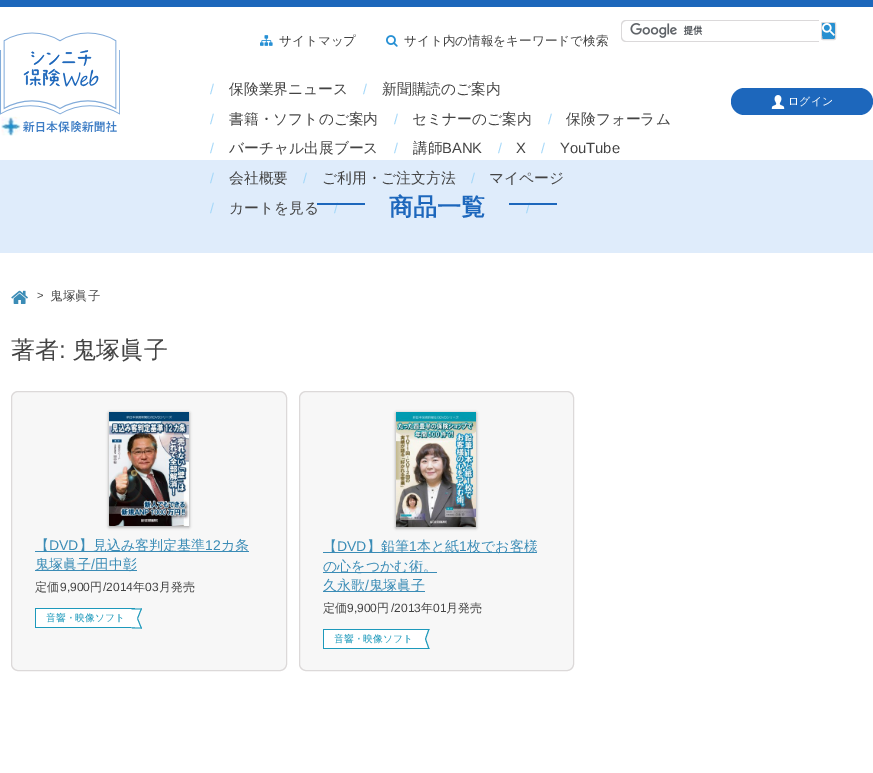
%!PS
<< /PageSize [873 773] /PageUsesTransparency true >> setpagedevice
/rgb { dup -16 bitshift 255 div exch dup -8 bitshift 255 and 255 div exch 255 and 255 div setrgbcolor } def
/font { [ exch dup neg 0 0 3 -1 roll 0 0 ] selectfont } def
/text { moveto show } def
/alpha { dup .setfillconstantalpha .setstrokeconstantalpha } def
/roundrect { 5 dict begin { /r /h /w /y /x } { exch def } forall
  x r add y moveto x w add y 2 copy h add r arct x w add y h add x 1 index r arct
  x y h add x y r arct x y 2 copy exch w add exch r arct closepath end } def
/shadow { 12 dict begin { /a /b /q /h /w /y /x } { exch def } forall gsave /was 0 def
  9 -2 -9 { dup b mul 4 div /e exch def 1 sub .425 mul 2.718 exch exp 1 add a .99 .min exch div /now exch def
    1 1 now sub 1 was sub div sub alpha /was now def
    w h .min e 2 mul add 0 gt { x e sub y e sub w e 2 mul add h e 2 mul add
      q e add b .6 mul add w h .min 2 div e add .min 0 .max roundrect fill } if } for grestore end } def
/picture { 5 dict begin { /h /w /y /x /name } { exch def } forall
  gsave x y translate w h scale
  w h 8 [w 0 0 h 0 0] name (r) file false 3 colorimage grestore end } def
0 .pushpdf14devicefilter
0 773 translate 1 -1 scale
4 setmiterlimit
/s1 { /WenQuanYiZenHei-Medium 12.6 font 16#434343 rgb } def
/s2 { /LiberationSans-Regular 14 font 16#A2D7F9 rgb } def
/s3 { /WenQuanYiZenHei-Medium 14.75 font 16#434343 rgb } def
/s4 { /LiberationSans-Regular 14.75 font 16#434343 rgb } def
/s5 { /WenQuanYiZenHei-Medium 11 font 16#FFFFFF rgb } def
/s6 { /WenQuanYiZenHei-Bold 24 font 16#1D67BC rgb } def
/s7 { /LiberationSans-Regular 11 font 16#434343 rgb } def
/s8 { /WenQuanYiZenHei-Medium 12.5 font 16#434343 rgb } def
/s9 { /WenQuanYiZenHei-Medium 24 font 16#434343 rgb } def
/s10 { /LiberationSans-Regular 24 font 16#434343 rgb } def
/s11 { /WenQuanYiZenHei-Medium 14 font 16#3B8CB6 rgb } def
/s12 { /LiberationSans-Regular 14 font 16#3B8CB6 rgb } def
/s13 { /WenQuanYiZenHei-Medium 12 font 16#434343 rgb } def
/s14 { /LiberationSans-Regular 12 font 16#434343 rgb } def
/s15 { /WenQuanYiZenHei-Medium 9.75 font 16#1D99BB rgb } def
16#FFFFFF rgb
0 0 873 773 rectfill
16#1D67BB rgb
0 0 873 7 rectfill
(pic1.raw) 0 32 120 104 picture
(pic2.raw) 260 35 13 11 picture
s1
(サイトマップ) 279 45 text
(pic3.raw) 386 35 12 12 picture
(サイト内の情報をキーワードで検索) 404 45 text
16#DBD9DA rgb
626 20 moveto 819 20 lineto 819 42 lineto 626 42 lineto 623 42 621 40 621 37 curveto 621 25 lineto 621 22 623 20 626 20 curveto closepath 626 21 moveto 819 21 lineto 819 41 lineto 626 41 lineto 624 41 622 39 622 37 curveto 622 25 lineto 622 23 624 21 626 21 curveto closepath eofill
(pic4.raw) 630 23 73 15 picture
16#2790D1 rgb
821.5 22.5 14 17 1.5 roundrect gsave fill grestore
16#DBD9DA rgb
stroke
(pic5.raw) 822 23 13 13 picture
s2
(/) 210 94 text
s3
(保険業界ニュース) 229 94 text
s2
(/) 363 94 text
s3
(新聞購読のご案内) 382 94 text
s2
(/) 210 124 text
s3
(書籍・ソフトのご案内) 229 124 text
s2
(/) 394 124 text
s3
(セミナーのご案内) 412 124 text
s2
(/) 548 124 text
s3
(保険フォーラム) 566 124 text
s2
(/) 210 153 text
s3
(バーチャル出展ブース) 229 153 text
s2
(/) 394 153 text
s3
(講師) 413 153 text
s4
(BANK) 442 153 text
s2
(/) 498 153 text
s4
(X) 516 153 text
s2
(/) 541 153 text
s4
(YouTube) 560 153 text
16#DFECFB rgb
0 160 873 93 rectfill
s2
(/) 210 183 text
s3
(会社概要) 229 183 text
s2
(/) 303 183 text
s3
(ご利用・ご注文方法) 322 183 text
s2
(/) 471 183 text
s3
(マイページ) 489 183 text
s2
(/) 210 213 text
s3
(カートを見る) 229 213 text
s2
(/) 334 213 text
(/) 526 213 text
16#1D67BC rgb
731 88 142 27 13.5 roundrect fill
(pic6.raw) 771 95 14 14 picture
s5
(ログイン) 788 105 text
16#1D67BC rgb
317 203 240 2 rectfill
16#DFECFB rgb
365 203 144 2 rectfill
s6
(商品一覧) 389 215 text
(pic7.raw) 11 290 17 14 picture
s7
(>) 37 299 text
s8
(鬼塚眞子) 50 300 text
s9
(著者) 11 358 text
s10
(:) 59 358 text
s9
(鬼塚眞子) 72 358 text
16#F7F7F7 rgb
11.5 391.5 275 279 6.5 roundrect gsave fill grestore
16#DCD9D9 rgb
stroke
16#000000 rgb
109 413 80 114 0 1.5 0.35 shadow
(pic8.raw) 109 412 80 114 picture
16#3B8CB6 rgb
35 551 214 1 rectfill
s11
(【) 35 550 text
s12
(DVD) 49 550 text
s11
(】見込み客判定基準) 79 550 text
s12
(12) 205 550 text
s11
(カ条) 221 550 text
35 570 102 1 rectfill
(鬼塚眞子) 35 569 text
s12
(/) 91 569 text
s11
(田中彰) 95 569 text
s13
(定価) 35 591 text
s14
(9,900) 60 591 text
s13
(円) 90 591 text
s14
(/2014) 103 591 text
s13
(年) 133 591 text
s14
(03) 145 591 text
s13
(月発売) 159 591 text
16#FFFFFF rgb
36 609 99 18 rectfill
16#1D99BB rgb
35 608 100 1 rectfill
35 627 100 1 rectfill
35 608 1 20 rectfill
s15
(音響・映像ソフト) 46 621 text
16#FFFFFF rgb
131.5 609.5 moveto 140.5 609.5 lineto 137 618.5 lineto 128.5 618.5 lineto closepath fill
16#1D99BB rgb
132 608.5 moveto 142 608.5 lineto 141.5 609.5 lineto 131.5 609.5 lineto closepath fill
141 608.5 moveto 142 608.5 lineto 138 618.5 lineto 137 618.5 lineto closepath fill
16#FFFFFF rgb
128.5 618.5 moveto 137 618.5 lineto 140.5 627.5 lineto 131.5 627.5 lineto closepath fill
16#1D99BB rgb
137 618.5 moveto 138 618.5 lineto 142 628.5 lineto 141 628.5 lineto closepath fill
131.5 627.5 moveto 141.5 627.5 lineto 142 628.5 lineto 132 628.5 lineto closepath fill
16#F7F7F7 rgb
299.5 391.5 274 279 6.5 roundrect gsave fill grestore
16#DCD9D9 rgb
stroke
16#000000 rgb
396 413 80 115 0 1.5 0.35 shadow
(pic9.raw) 396 412 80 115 picture
16#3B8CB6 rgb
323 552 214 1 rectfill
s11
(【) 323 551 text
s12
(DVD) 337 551 text
s11
(】鉛筆) 367 551 text
s12
(1) 409 551 text
s11
(本と紙) 417 551 text
s12
(1) 459 551 text
s11
(枚でお客様) 467 551 text
323 572 114 1 rectfill
(の心をつかむ術。) 323 571 text
323 591 102 1 rectfill
(久永歌) 323 590 text
s12
(/) 365 590 text
s11
(鬼塚眞子) 369 590 text
s13
(定価) 323 612 text
s14
(9,900) 347 612 text
s13
(円) 377 612 text
s14
(/2013) 391 612 text
s13
(年) 421 612 text
s14
(01) 433 612 text
s13
(月発売) 446 612 text
16#FFFFFF rgb
324 630 96 18 rectfill
16#1D99BB rgb
323 629 100 1 rectfill
323 648 100 1 rectfill
323 629 1 20 rectfill
s15
(音響・映像ソフト) 334 642 text
16#FFFFFF rgb
419.5 630 moveto 428 630 lineto 425 639 lineto 416 639 lineto closepath fill
16#1D99BB rgb
420 629 moveto 429.5 629 lineto 429 630 lineto 419.5 630 lineto closepath fill
428.5 629 moveto 429.5 629 lineto 426 639 lineto 425 639 lineto closepath fill
16#FFFFFF rgb
416 639 moveto 425 639 lineto 428 648 lineto 419.5 648 lineto closepath fill
16#1D99BB rgb
425 639 moveto 426 639 lineto 429.5 649 lineto 428.5 649 lineto closepath fill
419.5 648 moveto 429 648 lineto 429.5 649 lineto 420 649 lineto closepath fill
.poppdf14devicefilter showpage
